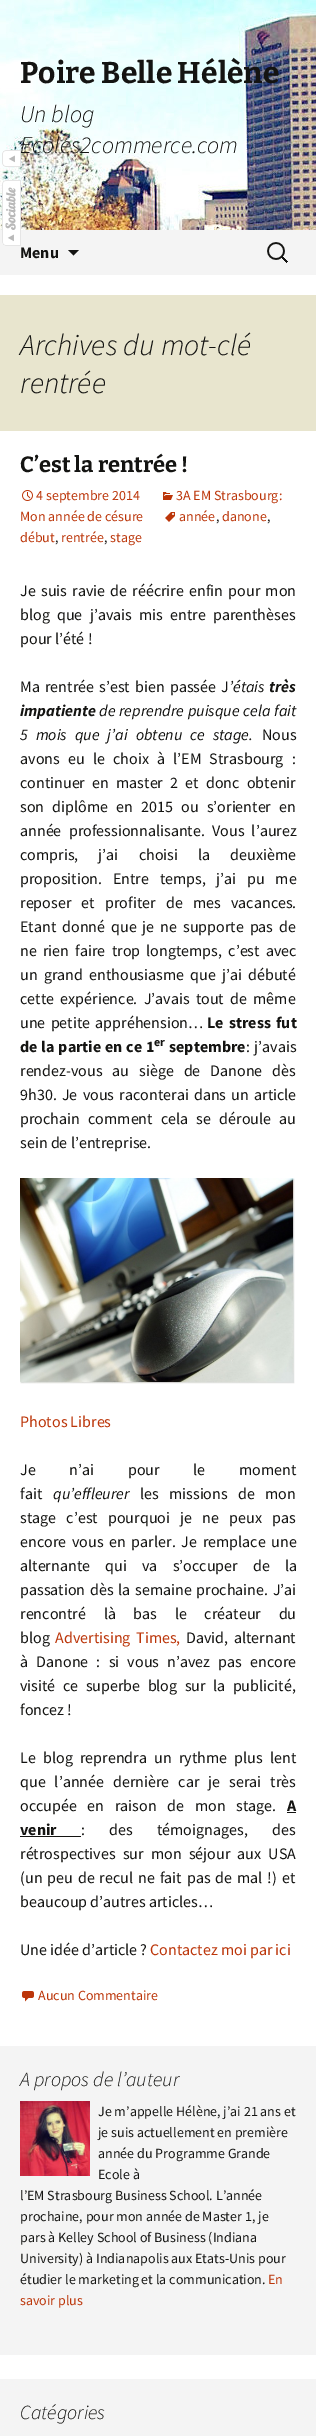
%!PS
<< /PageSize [316 2436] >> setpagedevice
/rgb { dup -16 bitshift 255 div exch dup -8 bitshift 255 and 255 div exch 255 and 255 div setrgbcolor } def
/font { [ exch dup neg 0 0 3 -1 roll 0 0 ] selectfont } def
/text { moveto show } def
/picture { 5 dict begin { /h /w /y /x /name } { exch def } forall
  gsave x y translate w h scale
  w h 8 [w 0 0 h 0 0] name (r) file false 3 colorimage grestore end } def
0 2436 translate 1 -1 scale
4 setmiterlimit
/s1 { /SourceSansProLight-LightItalic 24 font 16#141412 rgb } def
/s2 { /Bitter-Bold 30 font 16#141412 rgb } def
/s3 { /SourceSansPro-Bold 16 font 16#141412 rgb } def
/s4 { /SourceSansProLight-LightItalic 30 font 16#141412 rgb } def
/s5 { /Bitter-Bold 22 font 16#141412 rgb } def
/s6 { /SourceSansPro-Regular 14 font 16#BC360A rgb } def
/s7 { /SourceSansPro-Regular 14 font 16#141412 rgb } def
/s8 { /SourceSansPro-Regular 16 font 16#141412 rgb } def
/s9 { /SourceSansPro-Italic 16 font 16#141412 rgb } def
/s10 { /SourceSansPro-BoldItalic 16 font 16#141412 rgb } def
/s11 { /SourceSansPro-Bold 12 font 16#141412 rgb } def
/s12 { /SourceSansPro-Regular 16 font 16#BC360A rgb } def
/s13 { /SourceSansProLight-LightItalic 20 font 16#141412 rgb } def
16#FFFFFF rgb
0 0 316 2436 rectfill
(pic3.raw) 0 0 316 230 picture
s1
(Ecoles2commerce.com) 20 153 text
(pic1.raw) 2 150 19 17 picture
16#F4F4F4 rgb
0 230 316 45 rectfill
(pic2.raw) 2 180 19 66 picture
s2
(Poire Belle Hélène) 20 83 text
s1
(Un blog) 20 122 text
s3
(Menu) 20 258 text
68 250 moveto 73.5 255.5 lineto 79 250 lineto closepath fill
(pic4.raw) 267 242 21 21 picture
16#E8E5CE rgb
0 295 316 136 rectfill
s4
(Archives du mot-clé) 20 355 text
(rentrée) 20 393 text
s5
(C’est la rentrée !) 20 472 text
(pic5.raw) 163 492 10 8 picture
s6
(3A EM Strasbourg:) 176 500 text
(Mon année de césure) 20 521 text
(pic6.raw) 22 490 11 11 picture
(4 septembre 2014) 36 500 text
(pic7.raw) 165 512 10 10 picture
(année) 179 521 text
s7
(,) 216 521 text
s6
(danone) 222 521 text
s7
(,) 267 521 text
s6
(début) 20 542 text
s7
(,) 55 542 text
s6
(rentrée) 61 542 text
s7
(,) 104 542 text
s6
(stage) 110 542 text
/SourceSansPro-Regular 16 font
16#141412 rgb
20 596 moveto 2 0 32 (Je suis ravie de réécrire enfin pour mon) widthshow
20 620 moveto 4 0 32 (blog que j’avais mis entre parenthèses) widthshow
(pour l’été !) 20 644 text
20 692 moveto 2 0 32 (Ma rentrée s’est bien passée J) widthshow
s9
(’étais) 229 692 text
s10
(très) 269 692 text
(impatiente) 20 716 text
/SourceSansPro-Italic 16 font
99 716 moveto 0.5 0 32 (de reprendre puisque cela fait) widthshow
20 740 moveto 4.75 0 32 (5 mois que j’ai obtenu ce stage.) widthshow
s8
(Nous) 262 740 text
20 764 moveto 5 0 32 (avons eu le choix à l’EM Strasbourg :) widthshow
20 788 moveto 4 0 32 (continuer en master 2 et donc obtenir) widthshow
20 812 moveto 5 0 32 (son diplôme en 2015 ou s’orienter en) widthshow
20 836 moveto 4 0 32 (année professionnalisante. Vous l’aurez) widthshow
20 860 moveto 17 0 32 (compris, j’ai choisi la deuxième) widthshow
20 884 moveto 7.5 0 32 (proposition. Entre temps, j’ai pu me) widthshow
20 908 moveto 7 0 32 (reposer et profiter de mes vacances.) widthshow
20 932 moveto 2.75 0 32 (Etant donné que je ne supporte pas de) widthshow
20 956 moveto 3 0 32 (ne rien faire trop longtemps, c’est avec) widthshow
20 980 moveto 3 0 32 (un grand enthousiasme que j’ai débuté) widthshow
20 1004 moveto 3 0 32 (cette expérience. J’avais tout de même) widthshow
20 1028 moveto 2 0 32 (une petite appréhension…) widthshow
/SourceSansPro-Bold 16 font
207 1028 moveto 2 0 32 (Le stress fut) widthshow
20 1052 moveto 0.75 0 32 (de la partie en ce 1) widthshow
s11
(er) 154 1046 text
s3
(septembre) 169 1052 text
/SourceSansPro-Regular 16 font
246 1052 moveto 1 0 32 (: j’avais) widthshow
20 1076 moveto 6.75 0 32 (rendez-vous au siège de Danone dès) widthshow
20 1100 moveto 2 0 32 (9h30. Je vous raconterai dans un article) widthshow
20 1124 moveto 5 0 32 (prochain comment cela se déroule au) widthshow
(sein de l’entreprise.) 20 1148 text
(pic8.raw) 20 1178 275 206 picture
s12
(Photos Libres) 20 1427 text
16#141412 rgb
20 1475 moveto 30.5 0 32 (Je n’ai pour le moment) widthshow
(fait) 20 1499 text
s9
(qu’effleurer) 53 1499 text
/SourceSansPro-Regular 16 font
140 1499 moveto 7 0 32 (les missions de mon) widthshow
20 1523 moveto 7 0 32 (stage c’est pourquoi je ne peux pas) widthshow
20 1547 moveto 2.5 0 32 (encore vous en parler. Je remplace une) widthshow
20 1571 moveto 12 0 32 (alternante qui va s’occuper de la) widthshow
20 1595 moveto 1.5 0 32 (passation dès la semaine prochaine. J’ai) widthshow
20 1619 moveto 14.5 0 32 (rencontré là bas le créateur du) widthshow
(blog) 20 1643 text
16#BC360A rgb
55 1643 moveto 2.5 0 32 (Advertising Times,) widthshow
16#141412 rgb
186 1643 moveto 2.5 0 32 (David, alternant) widthshow
20 1667 moveto 5 0 32 (à Danone : si vous n’avez pas encore) widthshow
20 1691 moveto 4.25 0 32 (visité ce superbe blog sur la publicité,) widthshow
(foncez !) 20 1715 text
20 1763 moveto 4 0 32 (Le blog reprendra un rythme plus lent) widthshow
20 1787 moveto 5.75 0 32 (que l’année dernière car je serai très) widthshow
20 1811 moveto 7.5 0 32 (occupée en raison de mon stage.) widthshow
s3
(A) 287 1811 text
287 1812 9 1 rectfill
(venir) 20 1835 text
20 1836 61 1 rectfill
/SourceSansPro-Regular 16 font
81 1835 moveto 21 0 32 (: des témoignages, des) widthshow
20 1859 moveto 4 0 32 (rétrospectives sur mon séjour aux USA) widthshow
20 1883 moveto 1.75 0 32 (\(un peu de recul ne fait pas de mal !\) et) widthshow
(beaucoup d’autres articles…) 20 1907 text
(Une idée d’article ?) 20 1955 text
s12
(Contactez moi par ici) 150 1955 text
(pic9.raw) 22 1991 12 11 picture
s6
(Aucun Commentaire) 38 2000 text
16#F4F4F4 rgb
0 2046 316 309 rectfill
s13
(A propos de l’auteur) 20 2086 text
(pic10.raw) 20 2101 70 75 picture
s7
(Je m’appelle Hélène, j’ai 21 ans et) 98 2116 text
(je suis actuellement en première) 98 2137 text
(année du Programme Grande) 98 2158 text
(Ecole à) 98 2179 text
(l’EM Strasbourg Business School. L’année) 20 2200 text
(prochaine, pour mon année de Master 1, je) 20 2221 text
(pars à Kelley School of Business \(Indiana) 20 2242 text
(University\) à Indianapolis aux Etats-Unis pour) 20 2263 text
(étudier le marketing et la communication.) 20 2284 text
s6
(En) 268 2284 text
(savoir plus) 20 2305 text
16#F4F4F4 rgb
0 2379 316 57 rectfill
s13
(Catégories) 20 2419 text
showpage
